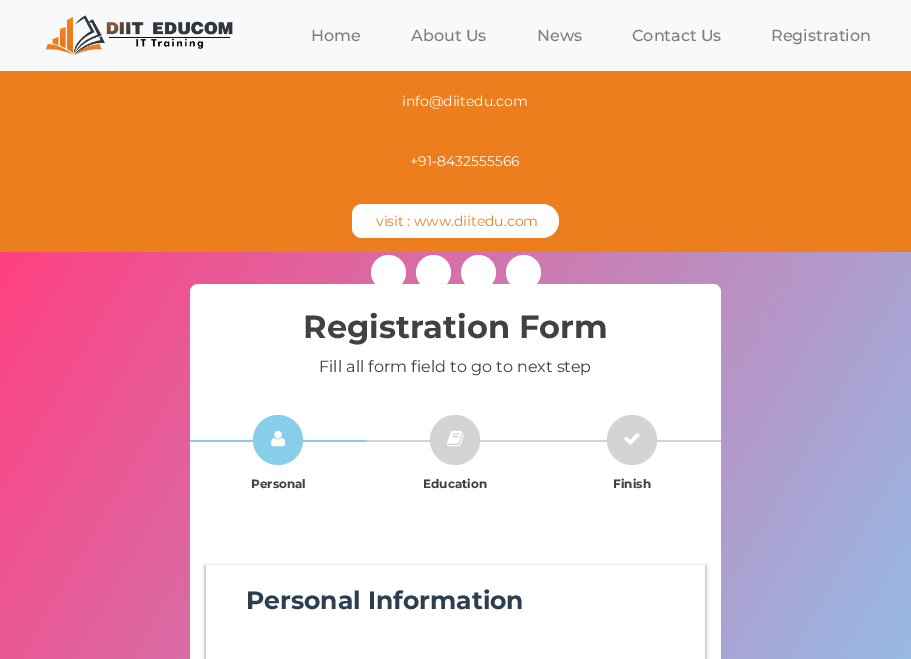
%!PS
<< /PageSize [911 659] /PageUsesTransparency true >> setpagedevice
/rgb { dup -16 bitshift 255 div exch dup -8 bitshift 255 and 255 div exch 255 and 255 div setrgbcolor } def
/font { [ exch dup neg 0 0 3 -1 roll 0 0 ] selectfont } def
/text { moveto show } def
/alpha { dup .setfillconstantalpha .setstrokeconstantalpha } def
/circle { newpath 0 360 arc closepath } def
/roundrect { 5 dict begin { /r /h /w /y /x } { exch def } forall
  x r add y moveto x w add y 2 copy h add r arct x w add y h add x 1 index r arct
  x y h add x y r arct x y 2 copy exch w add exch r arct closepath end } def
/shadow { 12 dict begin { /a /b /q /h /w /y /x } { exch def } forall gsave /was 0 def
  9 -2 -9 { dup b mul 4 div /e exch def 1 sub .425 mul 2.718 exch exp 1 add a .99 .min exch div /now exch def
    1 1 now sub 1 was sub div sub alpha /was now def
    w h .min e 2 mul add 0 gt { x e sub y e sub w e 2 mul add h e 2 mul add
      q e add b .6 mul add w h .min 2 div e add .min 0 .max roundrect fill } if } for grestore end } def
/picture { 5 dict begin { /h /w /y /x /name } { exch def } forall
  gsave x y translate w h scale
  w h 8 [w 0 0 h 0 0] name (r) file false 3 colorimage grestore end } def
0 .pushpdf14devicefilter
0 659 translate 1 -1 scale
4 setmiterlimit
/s1 { /Montserrat-Medium 16 font 16#7C7D7D rgb } def
/s2 { /Montserrat-Regular 14 font 16#FFFFFF rgb } def
/s3 { /Montserrat-Regular 14 font 16#EC7E1E rgb } def
/s4 { /Montserrat-Bold 32 font 16#414141 rgb } def
/s5 { /Montserrat-Regular 16 font 16#414141 rgb } def
/s6 { /Montserrat-Bold 12 font 16#414141 rgb } def
/s7 { /Montserrat-Bold 25 font 16#2C3E50 rgb } def
16#EC7E1E rgb
0 0 911 659 rectfill
16#F8F9FA rgb
0 0 911 71 rectfill
(pic1.raw) 45 15 188 41 picture
s1
(Home) 311 41 text
(About Us) 411 41 text
(News) 537 41 text
(Contact Us) 632 41 text
(Registration) 771 41 text
s2
(info@diitedu.com) 402 106 text
(+91-8432555566) 410 166 text
372 204 moveto 542 204 lineto 551.5 204 559 211.5 559 221 curveto 559 230.5 551.5 238 542 238 curveto 372 238 lineto closepath fill
s3
(visit : www.diitedu.com) 376 226 text
16#FFFFFF rgb
362 204 moveto 372 204 lineto 372 238 lineto 362 238 lineto 356.5 238 352 233.5 352 228 curveto 352 214 lineto 352 208.5 356.5 204 362 204 curveto closepath fill
gsave 0 252 moveto 911 252 lineto 911 659 lineto 0 659 lineto closepath clip newpath
<< /ShadingType 2 /ColorSpace /DeviceRGB /Coords [-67 368 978 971] /Extend [true true] /Function << /FunctionType 2 /Domain [0 1] /C0 [1 0.251 0.506] /C1 [0.506 0.831 0.98] /N 1 >> >> shfill grestore
388.5 272.5 17.5 circle fill
433.5 272.5 17.5 circle fill
478.5 272.5 17.5 circle fill
523.5 272.5 17.5 circle fill
190 284 531 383 8 roundrect fill
s4
(Registration Form) 303 338 text
s5
(Fill all form field to go to next step) 319 372 text
16#87CEEB rgb
190 440 177 2 rectfill
278 440 25 circle fill
(pic2.raw) 271 430 15 17 picture
s6
(Personal) 251 488 text
16#D3D3D3 rgb
367 440 354 2 rectfill
455 440 25 circle fill
(pic3.raw) 447 430 17 17 picture
s6
(Education) 423 488 text
16#D3D3D3 rgb
632 440 25 circle fill
(pic4.raw) 624 433 16 12 picture
s6
(Finish) 613 488 text
gsave
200 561 moveto 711 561 lineto 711 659 lineto 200 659 lineto closepath 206 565 moveto 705 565 lineto 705 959 lineto 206 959 lineto closepath eoclip newpath
16#000000 rgb
204 565 503 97 0 1 0.2 shadow
grestore
s7
(Personal Information) 246 609 text
.poppdf14devicefilter showpage
